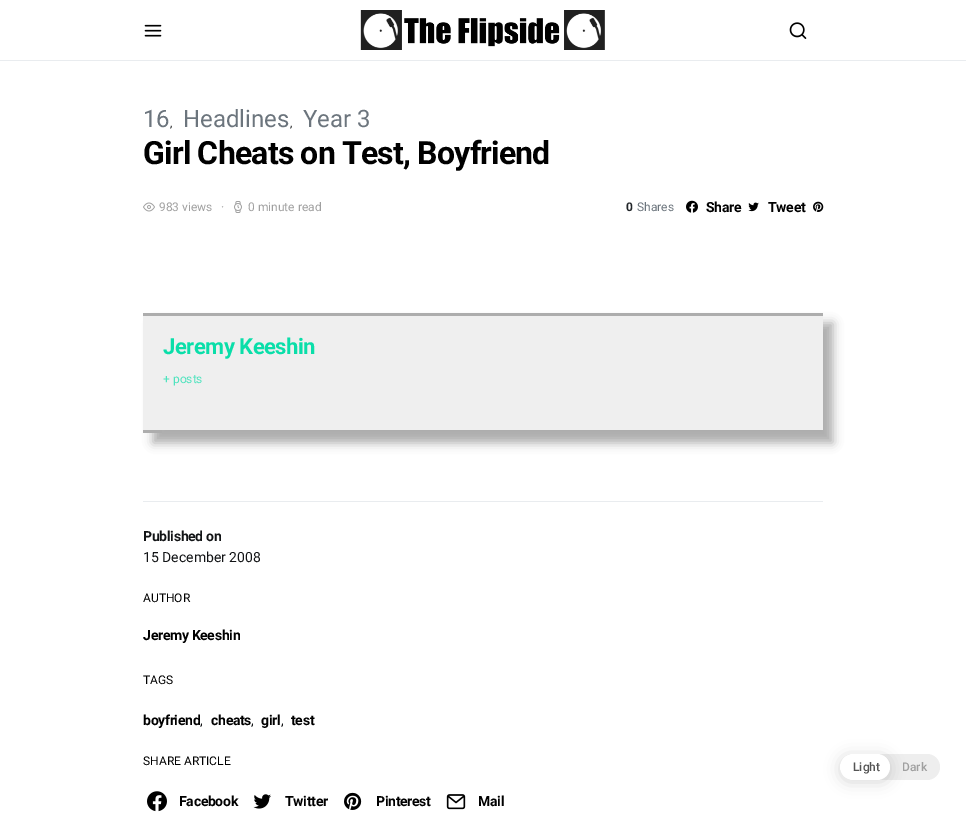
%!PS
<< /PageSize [966 814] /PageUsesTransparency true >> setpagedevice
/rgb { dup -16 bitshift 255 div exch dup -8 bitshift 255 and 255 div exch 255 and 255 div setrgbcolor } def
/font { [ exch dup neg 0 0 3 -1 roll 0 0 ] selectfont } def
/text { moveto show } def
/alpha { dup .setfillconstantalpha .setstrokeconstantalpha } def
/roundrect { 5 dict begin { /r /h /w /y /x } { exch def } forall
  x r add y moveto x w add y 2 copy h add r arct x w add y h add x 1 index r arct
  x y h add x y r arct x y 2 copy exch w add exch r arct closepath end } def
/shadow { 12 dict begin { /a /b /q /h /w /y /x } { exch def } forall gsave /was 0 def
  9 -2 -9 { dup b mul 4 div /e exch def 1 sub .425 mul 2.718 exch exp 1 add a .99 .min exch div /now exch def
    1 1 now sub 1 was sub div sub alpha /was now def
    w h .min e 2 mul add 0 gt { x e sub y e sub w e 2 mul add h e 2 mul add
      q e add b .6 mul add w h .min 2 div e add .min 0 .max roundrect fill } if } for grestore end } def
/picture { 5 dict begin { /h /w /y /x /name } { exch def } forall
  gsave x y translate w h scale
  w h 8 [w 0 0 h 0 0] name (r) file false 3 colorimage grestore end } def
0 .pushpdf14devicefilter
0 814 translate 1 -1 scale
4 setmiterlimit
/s1 { /Roboto-Regular 24 font 16#6C757D rgb } def
/s2 { /Roboto-Regular 12 font 16#121416 rgb } def
/s3 { /Roboto-Regular 12 font 16#A0A0A0 rgb } def
/s4 { /Roboto-Bold 12 font 16#212529 rgb } def
/s5 { /Roboto-Regular 12 font 16#6C757D rgb } def
/s6 { /Roboto-Regular 12 font 16#4FE3BE rgb } def
/s7 { /Roboto-Regular 14 font 16#121416 rgb } def
/s8 { /Roboto-Regular 12 font 16#000000 rgb } def
/s9 { /Roboto-Medium 12 font 16#555555 rgb } def
/s10 { /Roboto-Medium 12 font 16#A0A0A0 rgb } def
16#FFFFFF rgb
0 0 966 814 rectfill
16#E9ECEF rgb
0 60 966 1 rectfill
(pic1.raw) 144 24 18 13 picture
(pic2.raw) 360 10 245 40 picture
(pic3.raw) 789 22 18 17 picture
s1
(16) 143 127 text
s2
(,) 170 127 text
s1
(Headlines) 183 127 text
s2
(,) 290 127 text
s1
(Year 3) 303 127 text
/Roboto-Bold 32 font
16#000000 rgb
143 164 moveto -0.8 0 (Girl Cheats on Test, Boyfriend) ashow
(pic4.raw) 143 202 12 10 picture
s3
(983 views) 159 211 text
(·) 221 211 text
(pic5.raw) 234 201 8 12 picture
(0 minute read) 248 211 text
s4
(0) 626 211 text
s5
(Shares) 637 211 text
(pic6.raw) 686 200 12 13 picture
/Roboto-Bold 14 font
16#000000 rgb
706 212 moveto -0.3 0 (Share) ashow
(pic7.raw) 748 202 11 10 picture
768 212 moveto -0.3 0 (Tweet) ashow
(pic8.raw) 813 201 11 11 picture
16#ABABAB rgb
153 323 680 120 0 5 1 shadow
16#EFEFEF rgb
143 316 680 114 rectfill
16#ADADAD rgb
143 313 680 3 rectfill
143 430 19 3 rectfill
/Roboto-Bold 22 font
16#0ADEA9 rgb
163 354 moveto -0.5 0 (Jeremy Keeshin) ashow
s6
(+ posts) 163 383 text
16#E9ECEF rgb
143 501 680 1 rectfill
/Roboto-Bold 14 font
16#121416 rgb
143 541 moveto -0.3 0 (Published on) ashow
s7
(15 December 2008) 143 562 text
s8
(AUTHOR) 143 602 text
/Roboto-Bold 14 font
143 640 moveto -0.3 0 (Jeremy Keeshin) ashow
s8
(TAGS) 143 684 text
/Roboto-Bold 14 font
143 725 moveto -0.3 0 (boyfriend) ashow
s7
(,) 200 725 text
/Roboto-Bold 14 font
16#000000 rgb
211 725 moveto -0.3 0 (cheats) ashow
s7
(,) 251 725 text
/Roboto-Bold 14 font
16#000000 rgb
261 725 moveto -0.3 0 (girl) ashow
s7
(,) 281 725 text
/Roboto-Bold 14 font
16#000000 rgb
291 725 moveto -0.3 0 (test) ashow
s8
(SHARE ARTICLE) 143 765 text
(pic9.raw) 147 791 20 21 picture
/Roboto-Bold 14 font
179 806 moveto -0.3 0 (Facebook) ashow
(pic10.raw) 253 794 18 15 picture
285 806 moveto -0.3 0 (Twitter) ashow
(pic11.raw) 344 792 18 18 picture
376 806 moveto -0.3 0 (Pinterest) ashow
(pic12.raw) 446 794 20 16 picture
478 806 moveto -0.3 0 (Mail) ashow
16#EEEEEE rgb
840 754 100 26 13 roundrect fill
16#000000 rgb
840 756 50 26 13 7.5 0.15 shadow
16#FFFFFF rgb
840 754 50 26 13 roundrect fill
s9
(Light) 853 771 text
s10
(Dark) 902 771 text
.poppdf14devicefilter showpage
